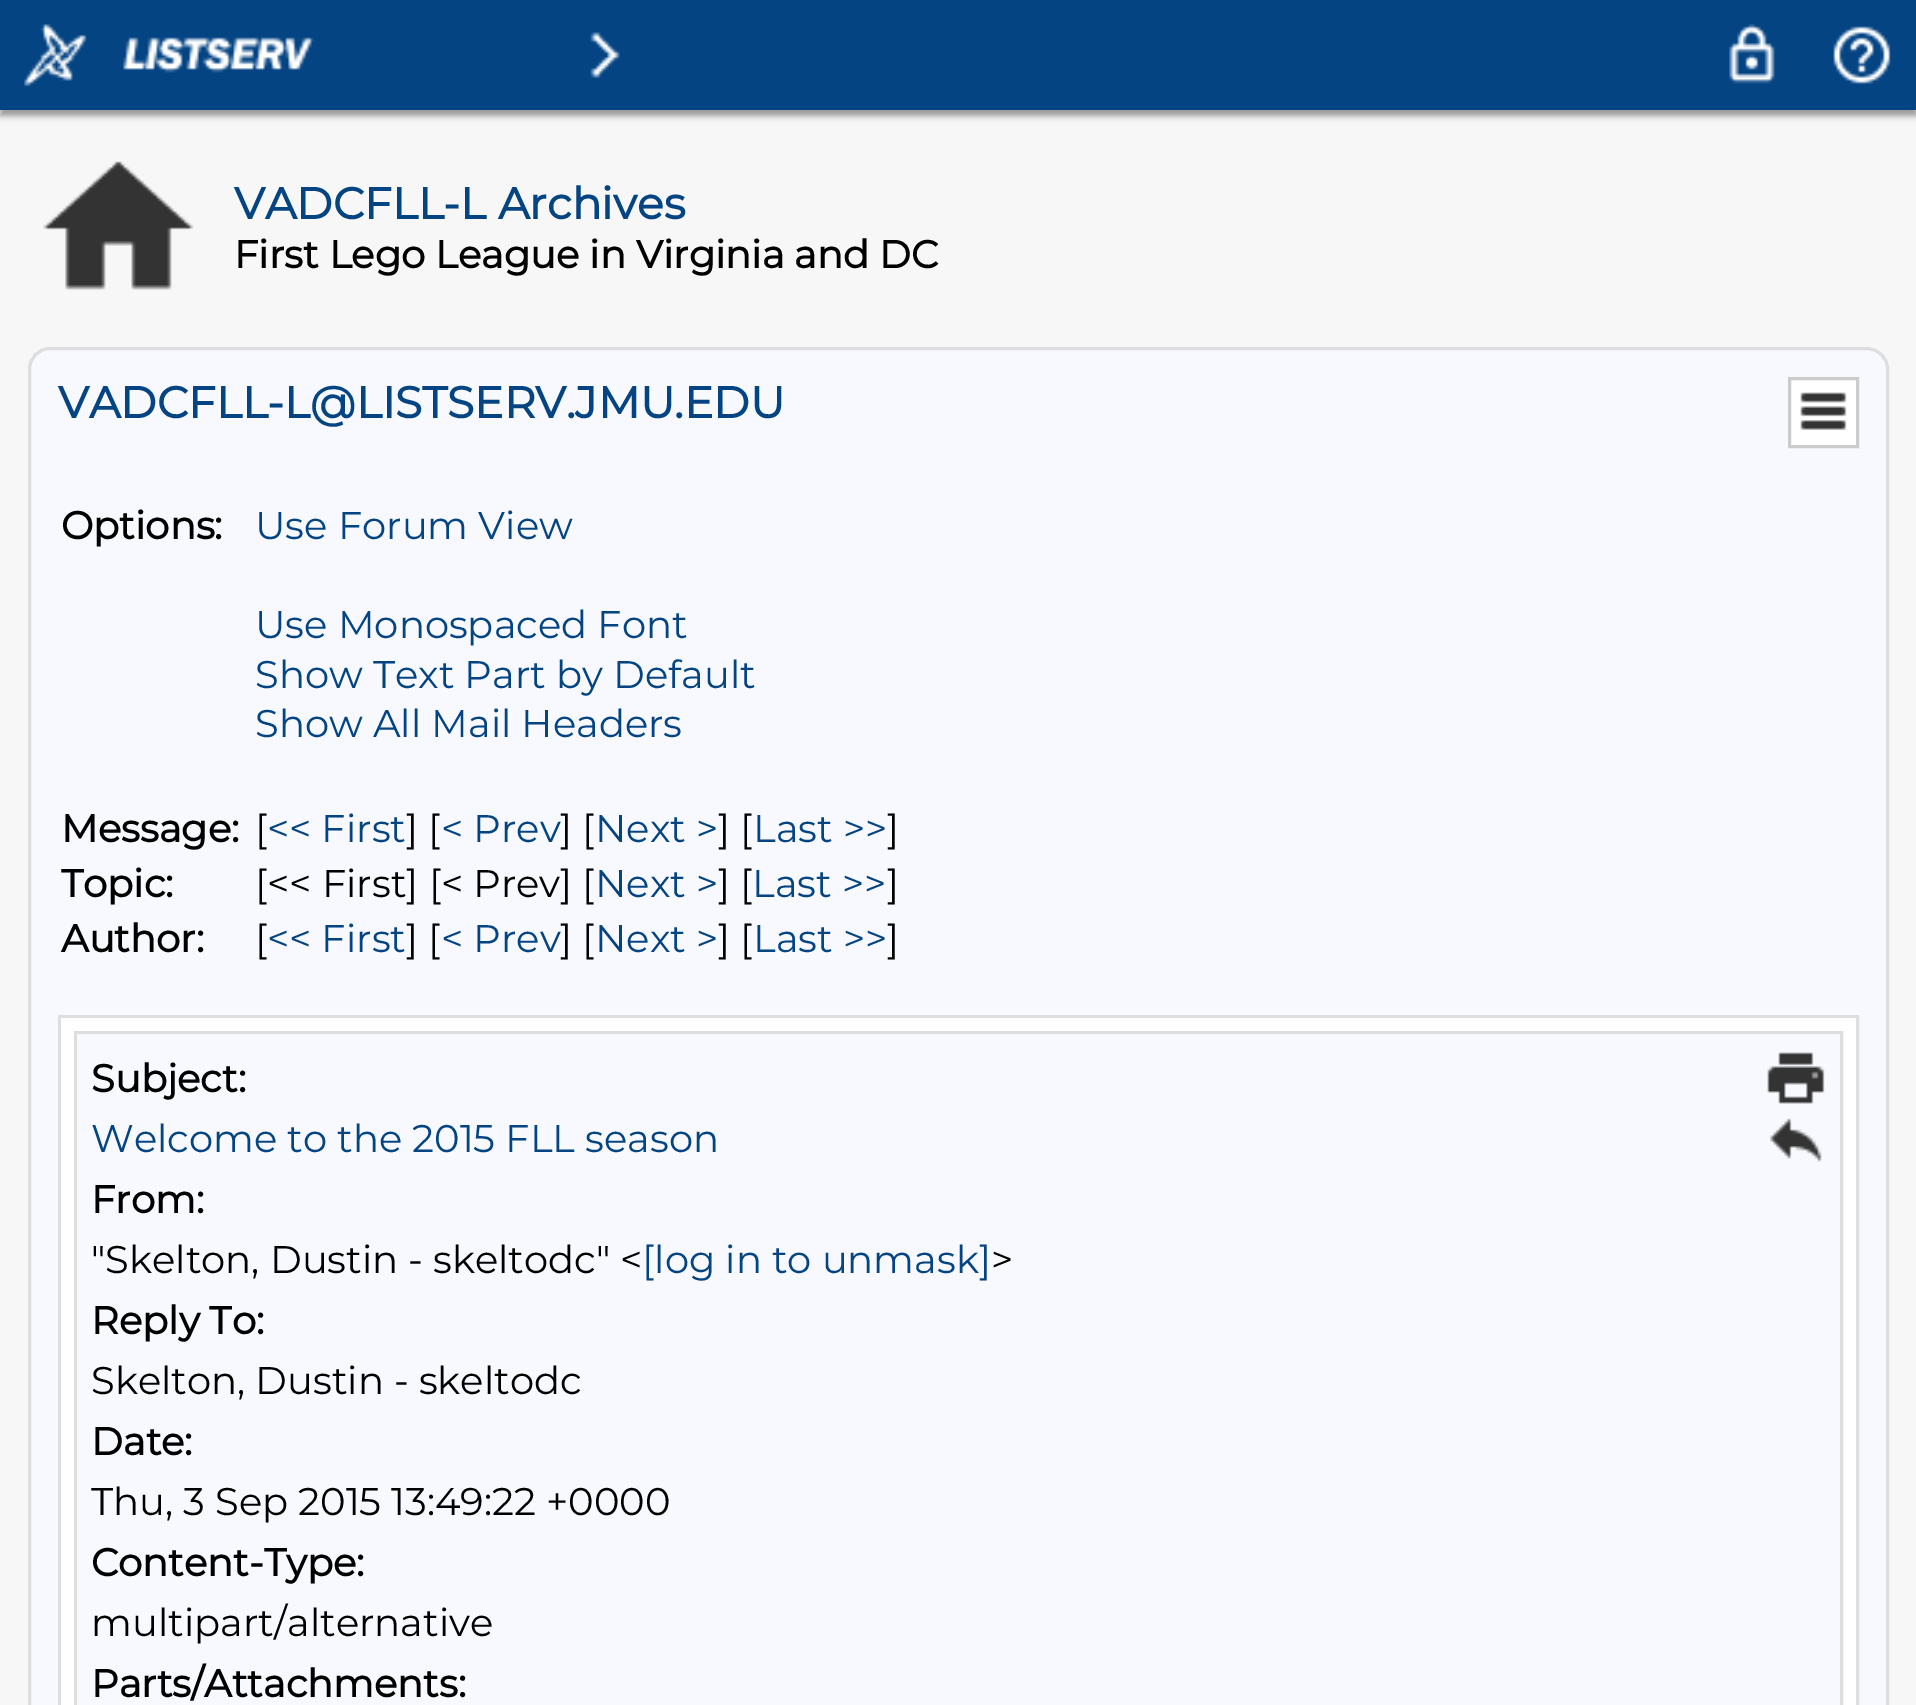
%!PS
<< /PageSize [1916 1705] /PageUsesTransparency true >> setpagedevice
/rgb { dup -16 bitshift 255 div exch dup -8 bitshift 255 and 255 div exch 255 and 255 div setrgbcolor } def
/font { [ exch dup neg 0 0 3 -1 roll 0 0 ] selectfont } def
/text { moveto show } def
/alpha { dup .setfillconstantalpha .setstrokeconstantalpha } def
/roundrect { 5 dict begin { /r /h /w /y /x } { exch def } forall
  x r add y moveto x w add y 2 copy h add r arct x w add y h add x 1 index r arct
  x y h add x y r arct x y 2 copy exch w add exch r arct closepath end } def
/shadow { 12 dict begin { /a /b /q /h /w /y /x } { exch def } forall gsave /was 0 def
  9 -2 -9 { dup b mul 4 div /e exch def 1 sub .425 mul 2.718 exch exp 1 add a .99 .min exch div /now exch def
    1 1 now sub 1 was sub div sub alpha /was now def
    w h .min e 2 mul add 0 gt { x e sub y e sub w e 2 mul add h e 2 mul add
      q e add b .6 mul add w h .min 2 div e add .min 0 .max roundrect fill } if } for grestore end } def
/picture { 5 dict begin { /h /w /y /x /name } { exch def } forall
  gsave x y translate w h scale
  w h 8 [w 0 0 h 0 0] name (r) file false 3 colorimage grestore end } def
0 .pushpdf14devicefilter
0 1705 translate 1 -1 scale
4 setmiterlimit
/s1 { /Montserrat-Bold 44 font 16#054483 rgb } def
/s2 { /Montserrat-Bold 38.5 font 16#000000 rgb } def
/s3 { /Montserrat-Thin 38.5 font 16#054483 rgb } def
/s4 { /Montserrat-Thin 38.5 font 16#000000 rgb } def
16#F7F7F7 rgb
0 0 1916 1705 rectfill
16#999999 rgb
0 6 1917 110 0 3 1 shadow
16#054483 rgb
0 0 1916 110 rectfill
(pic1.raw) 24 24 63 63 picture
(pic2.raw) 123 37 191 36 picture
(pic3.raw) 590 32 30 46 picture
(pic4.raw) 1729 24 46 60 picture
(pic5.raw) 1833 26 58 58 picture
(pic6.raw) 43 161 151 129 picture
s1
(VADCFLL-L Archives) 234 219 text
s2
(First Lego League in Virginia and DC) 234 268 text
16#F7F9FE rgb
29.5 348.5 1858 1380 20.5 roundrect gsave fill grestore
16#DEDEDE rgb
3 setlinewidth
stroke
s1
(VADCFLL-L@LISTSERV.JMU.EDU) 58 418 text
16#FFFFFF rgb
1789.5 378.5 moveto 1857.5 378.5 lineto 1857.5 446.5 lineto 1789.5 446.5 lineto closepath gsave fill grestore
16#CCCCCC rgb
stroke
(pic7.raw) 1800 392 47 38 picture
s2
(Options:) 61 539 text
s3
(Use Forum View) 255 539 text
(Use Monospaced Font) 255 638 text
(Show Text Part by Default) 255 688 text
(Show All Mail Headers) 255 737 text
s2
(Message:) 61 842 text
s4
([) 255 842 text
s3
(<< First) 267 842 text
s4
(] [) 406 842 text
s3
(< Prev) 441 842 text
s4
(] [) 560 842 text
s3
(Next >) 595 842 text
s4
(] [) 718 842 text
s3
(Last >>) 753 842 text
s4
(]) 887 842 text
s2
(Topic:) 61 897 text
s4
([<< First] [< Prev] [) 255 897 text
s3
(Next >) 595 897 text
s4
(] [) 718 897 text
s3
(Last >>) 752 897 text
s4
(]) 887 897 text
s2
(Author:) 61 952 text
s4
([) 255 952 text
s3
(<< First) 267 952 text
s4
(] [) 406 952 text
s3
(< Prev) 441 952 text
s4
(] [) 560 952 text
s3
(Next >) 595 952 text
s4
(] [) 718 952 text
s3
(Last >>) 753 952 text
s4
(]) 887 952 text
16#DEDEDE rgb
59.5 1016.5 1798 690 rectstroke
16#FFFFFF rgb
61 1018 1795 687 rectfill
16#DEDEDE rgb
75.5 1032.5 1766 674 rectstroke
16#F7F9FE rgb
77 1034 1763 671 rectfill
s2
(Subject:) 91 1092 text
s3
(Welcome to the 2015 FLL season) 91 1152 text
s2
(From:) 91 1213 text
s4
("Skelton, Dustin - skeltodc" <) 91 1273 text
s3
([log in to unmask]) 642 1273 text
s4
(>) 991 1273 text
s2
(Reply To:) 91 1334 text
s4
(Skelton, Dustin - skeltodc) 91 1394 text
s2
(Date:) 91 1455 text
s4
(Thu, 3 Sep 2015 13:49:22 +0000) 91 1515 text
s2
(Content-Type:) 91 1576 text
s4
(multipart/alternative) 91 1636 text
s2
(Parts/Attachments:) 91 1697 text
(pic8.raw) 1767 1052 58 52 picture
(pic9.raw) 1770 1118 52 44 picture
.poppdf14devicefilter showpage
